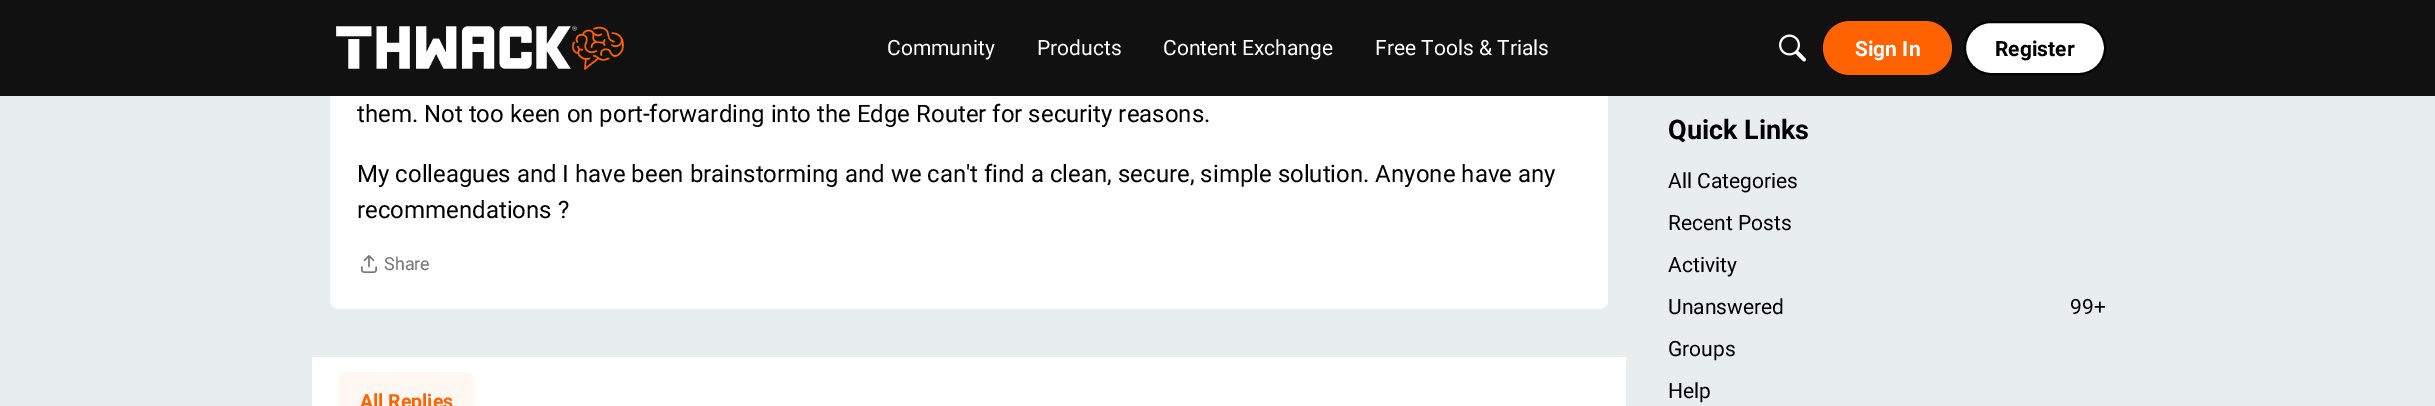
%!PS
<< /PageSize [2435 406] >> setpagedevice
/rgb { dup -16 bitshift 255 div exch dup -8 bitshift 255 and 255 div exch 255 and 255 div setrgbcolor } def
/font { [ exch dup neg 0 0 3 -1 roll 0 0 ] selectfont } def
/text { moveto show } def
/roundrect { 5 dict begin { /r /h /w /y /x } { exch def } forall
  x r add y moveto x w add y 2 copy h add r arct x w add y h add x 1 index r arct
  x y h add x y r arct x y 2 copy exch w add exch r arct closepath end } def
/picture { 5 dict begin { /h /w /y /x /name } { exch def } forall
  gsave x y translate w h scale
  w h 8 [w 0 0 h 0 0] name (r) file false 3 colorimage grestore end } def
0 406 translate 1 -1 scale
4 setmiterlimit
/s1 { /Roboto-Regular 21 font 16#FFFFFF rgb } def
/s2 { /Roboto-Bold 21 font 16#FFFFFF rgb } def
/s3 { /Roboto-Bold 21 font 16#000000 rgb } def
/s4 { /Roboto-Regular 24 font 16#000000 rgb } def
/s5 { /Roboto-Regular 18 font 16#767676 rgb } def
/s6 { /Roboto-Bold 19.5 font 16#FF6200 rgb } def
/s7 { /Roboto-Bold 27 font 16#000000 rgb } def
/s8 { /Roboto-Regular 21 font 16#000000 rgb } def
16#E8EDED rgb
0 0 2435 406 rectfill
16#FFFFFF rgb
330 -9 1278 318 9 roundrect fill
16#111111 rgb
0 0 2435 96 rectfill
(pic1.raw) 336 26 288 44 picture
s1
(Community) 887 55 text
(Products) 1037 55 text
(Content Exchange) 1163 55 text
(Free Tools & Trials) 1375 55 text
(pic2.raw) 1779 34 27 28 picture
16#FF6200 rgb
1823 21 129 54 27 roundrect fill
s2
(Sign In) 1855 56 text
1965 22 140 52 26 roundrect gsave fill grestore
16#000000 rgb
2 setlinewidth
stroke
(Register) 1995 56 text
s4
(them. Not too keen on port-forwarding into the Edge Router for security reasons.) 357 122 text
(My colleagues and I have been brainstorming and we can't find a clean, secure, simple solution. Anyone have any) 357 182 text
(recommendations ?) 357 218 text
(pic3.raw) 361 255 16 18 picture
s5
(Share) 384 270 text
16#FFFFFF rgb
312 357 1314 49 rectfill
16#FFF7F2 rgb
348 372 moveto 465 372 lineto 470 372 474 376 474 381 curveto 474 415 lineto 339 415 lineto 339 381 lineto 339 376 343 372 348 372 curveto closepath fill
s6
(All Replies) 360 408 text
s7
(Quick Links) 1668 139 text
s8
(All Categories) 1668 188 text
(Recent Posts) 1668 230 text
(Activity) 1668 272 text
(Unanswered) 1668 314 text
(99+) 2070 314 text
(Groups) 1668 356 text
(Help) 1668 398 text
showpage
